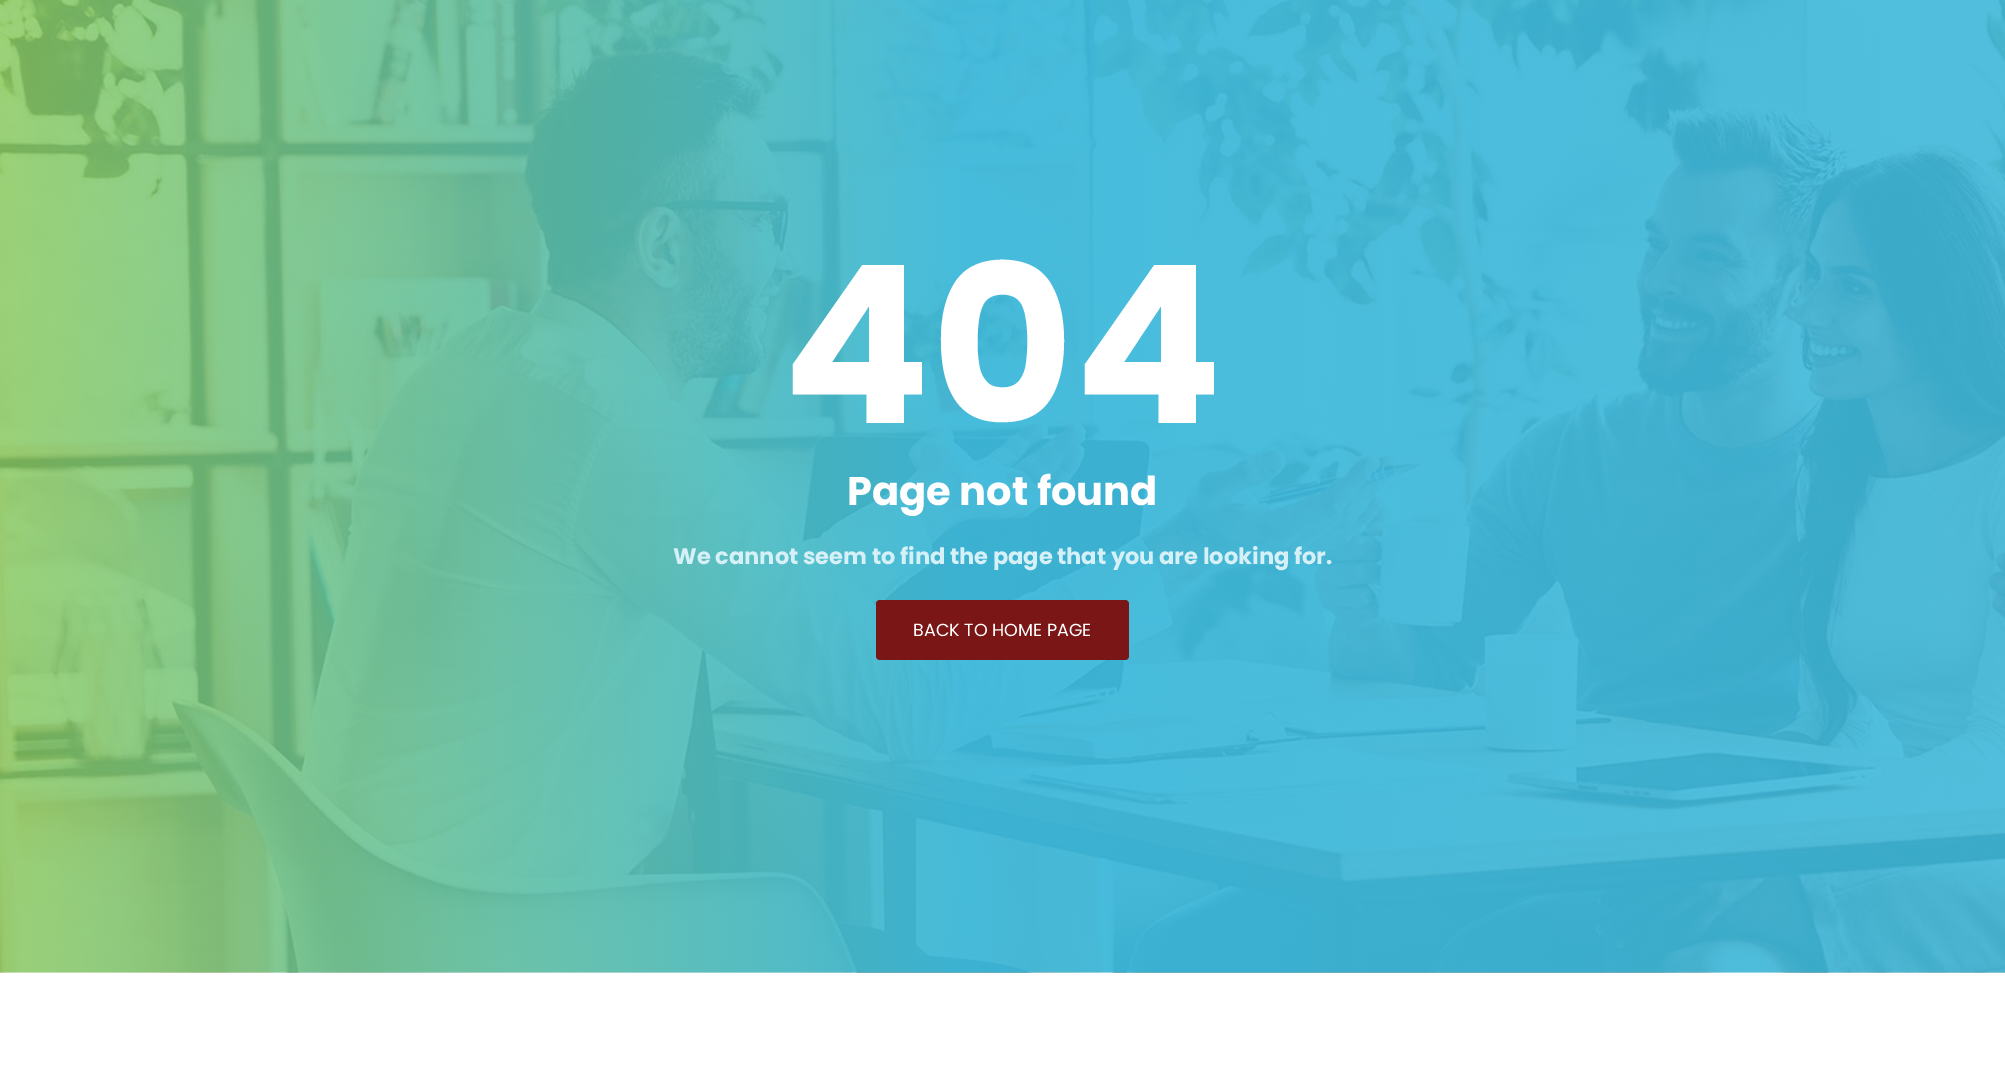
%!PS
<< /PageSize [2005 1088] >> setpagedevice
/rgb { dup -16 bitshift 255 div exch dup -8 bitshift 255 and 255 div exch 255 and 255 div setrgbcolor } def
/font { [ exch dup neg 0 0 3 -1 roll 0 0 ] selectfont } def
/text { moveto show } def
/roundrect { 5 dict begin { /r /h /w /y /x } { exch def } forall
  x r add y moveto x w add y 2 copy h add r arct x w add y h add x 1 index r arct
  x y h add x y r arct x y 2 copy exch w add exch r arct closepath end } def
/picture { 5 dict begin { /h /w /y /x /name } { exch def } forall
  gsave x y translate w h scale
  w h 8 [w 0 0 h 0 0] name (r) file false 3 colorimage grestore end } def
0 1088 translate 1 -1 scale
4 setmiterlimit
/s1 { /Poppins-Bold 220 font 16#FFFFFF rgb } def
/s2 { /Poppins-Bold 40 font 16#FFFFFF rgb } def
/s3 { /Poppins-Bold 22.5 font 16#D6F0F7 rgb } def
/s4 { /Poppins-Regular 17.5 font 16#FFFFFF rgb } def
16#FFFFFF rgb
0 0 2005 1088 rectfill
(pic1.raw) 0 0 2005 973 picture
s1
(404) 782 423 text
s2
(Page not found) 847 505 text
s3
(We cannot seem to find the page that you are looking for.) 673 564 text
16#7A1615 rgb
876 600 253 60 4 roundrect fill
s4
(BACK TO HOME PAGE) 913 636 text
showpage
